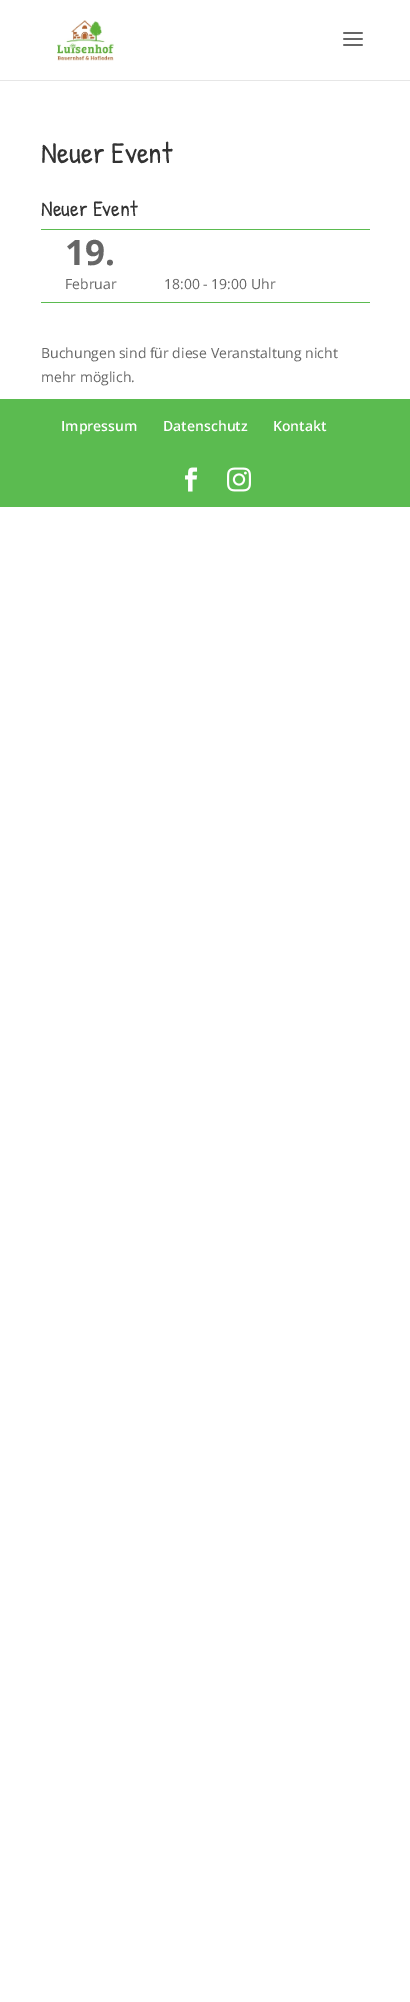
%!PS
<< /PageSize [410 2002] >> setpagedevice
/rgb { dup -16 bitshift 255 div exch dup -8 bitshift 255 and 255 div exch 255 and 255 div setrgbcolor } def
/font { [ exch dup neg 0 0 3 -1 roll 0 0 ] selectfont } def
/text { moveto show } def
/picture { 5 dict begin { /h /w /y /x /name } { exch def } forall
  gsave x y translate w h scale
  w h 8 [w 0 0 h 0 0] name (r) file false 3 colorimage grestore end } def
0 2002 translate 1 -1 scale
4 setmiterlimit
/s1 { /PatrickHand-Regular 30 font 16#333333 rgb } def
/s2 { /PatrickHand-Regular 22 font 16#333333 rgb } def
/s3 { /OpenSans-Bold 35 font 16#666666 rgb } def
/s4 { /OpenSans-Regular 14 font 16#666666 rgb } def
/s5 { /OpenSans-SemiBold 14 font 16#FFFFFF rgb } def
16#FFFFFF rgb
0 0 410 2002 rectfill
16#E6E6E6 rgb
0 80 410 1 rectfill
(pic1.raw) 57 20 57 41 picture
(pic2.raw) 343 32 20 14 picture
s1
(Neuer Event) 41 163 text
s2
(Neuer Event) 41 216 text
s3
(19.) 65 265 text
s4
(Februar) 65 289 text
16#5BBB50 rgb
41 229 329 1 rectfill
41 302 329 1 rectfill
s4
(18:00 - 19:00 Uhr) 164 289 text
(Buchungen sind für diese Veranstaltung nicht) 41 358 text
(mehr möglich.) 41 382 text
16#5BBB50 rgb
0 399 410 108 rectfill
s5
(Impressum) 61 431 text
(Datenschutz) 163 431 text
(Kontakt) 273 431 text
(pic3.raw) 185 467 13 25 picture
(pic4.raw) 227 467 24 25 picture
showpage
